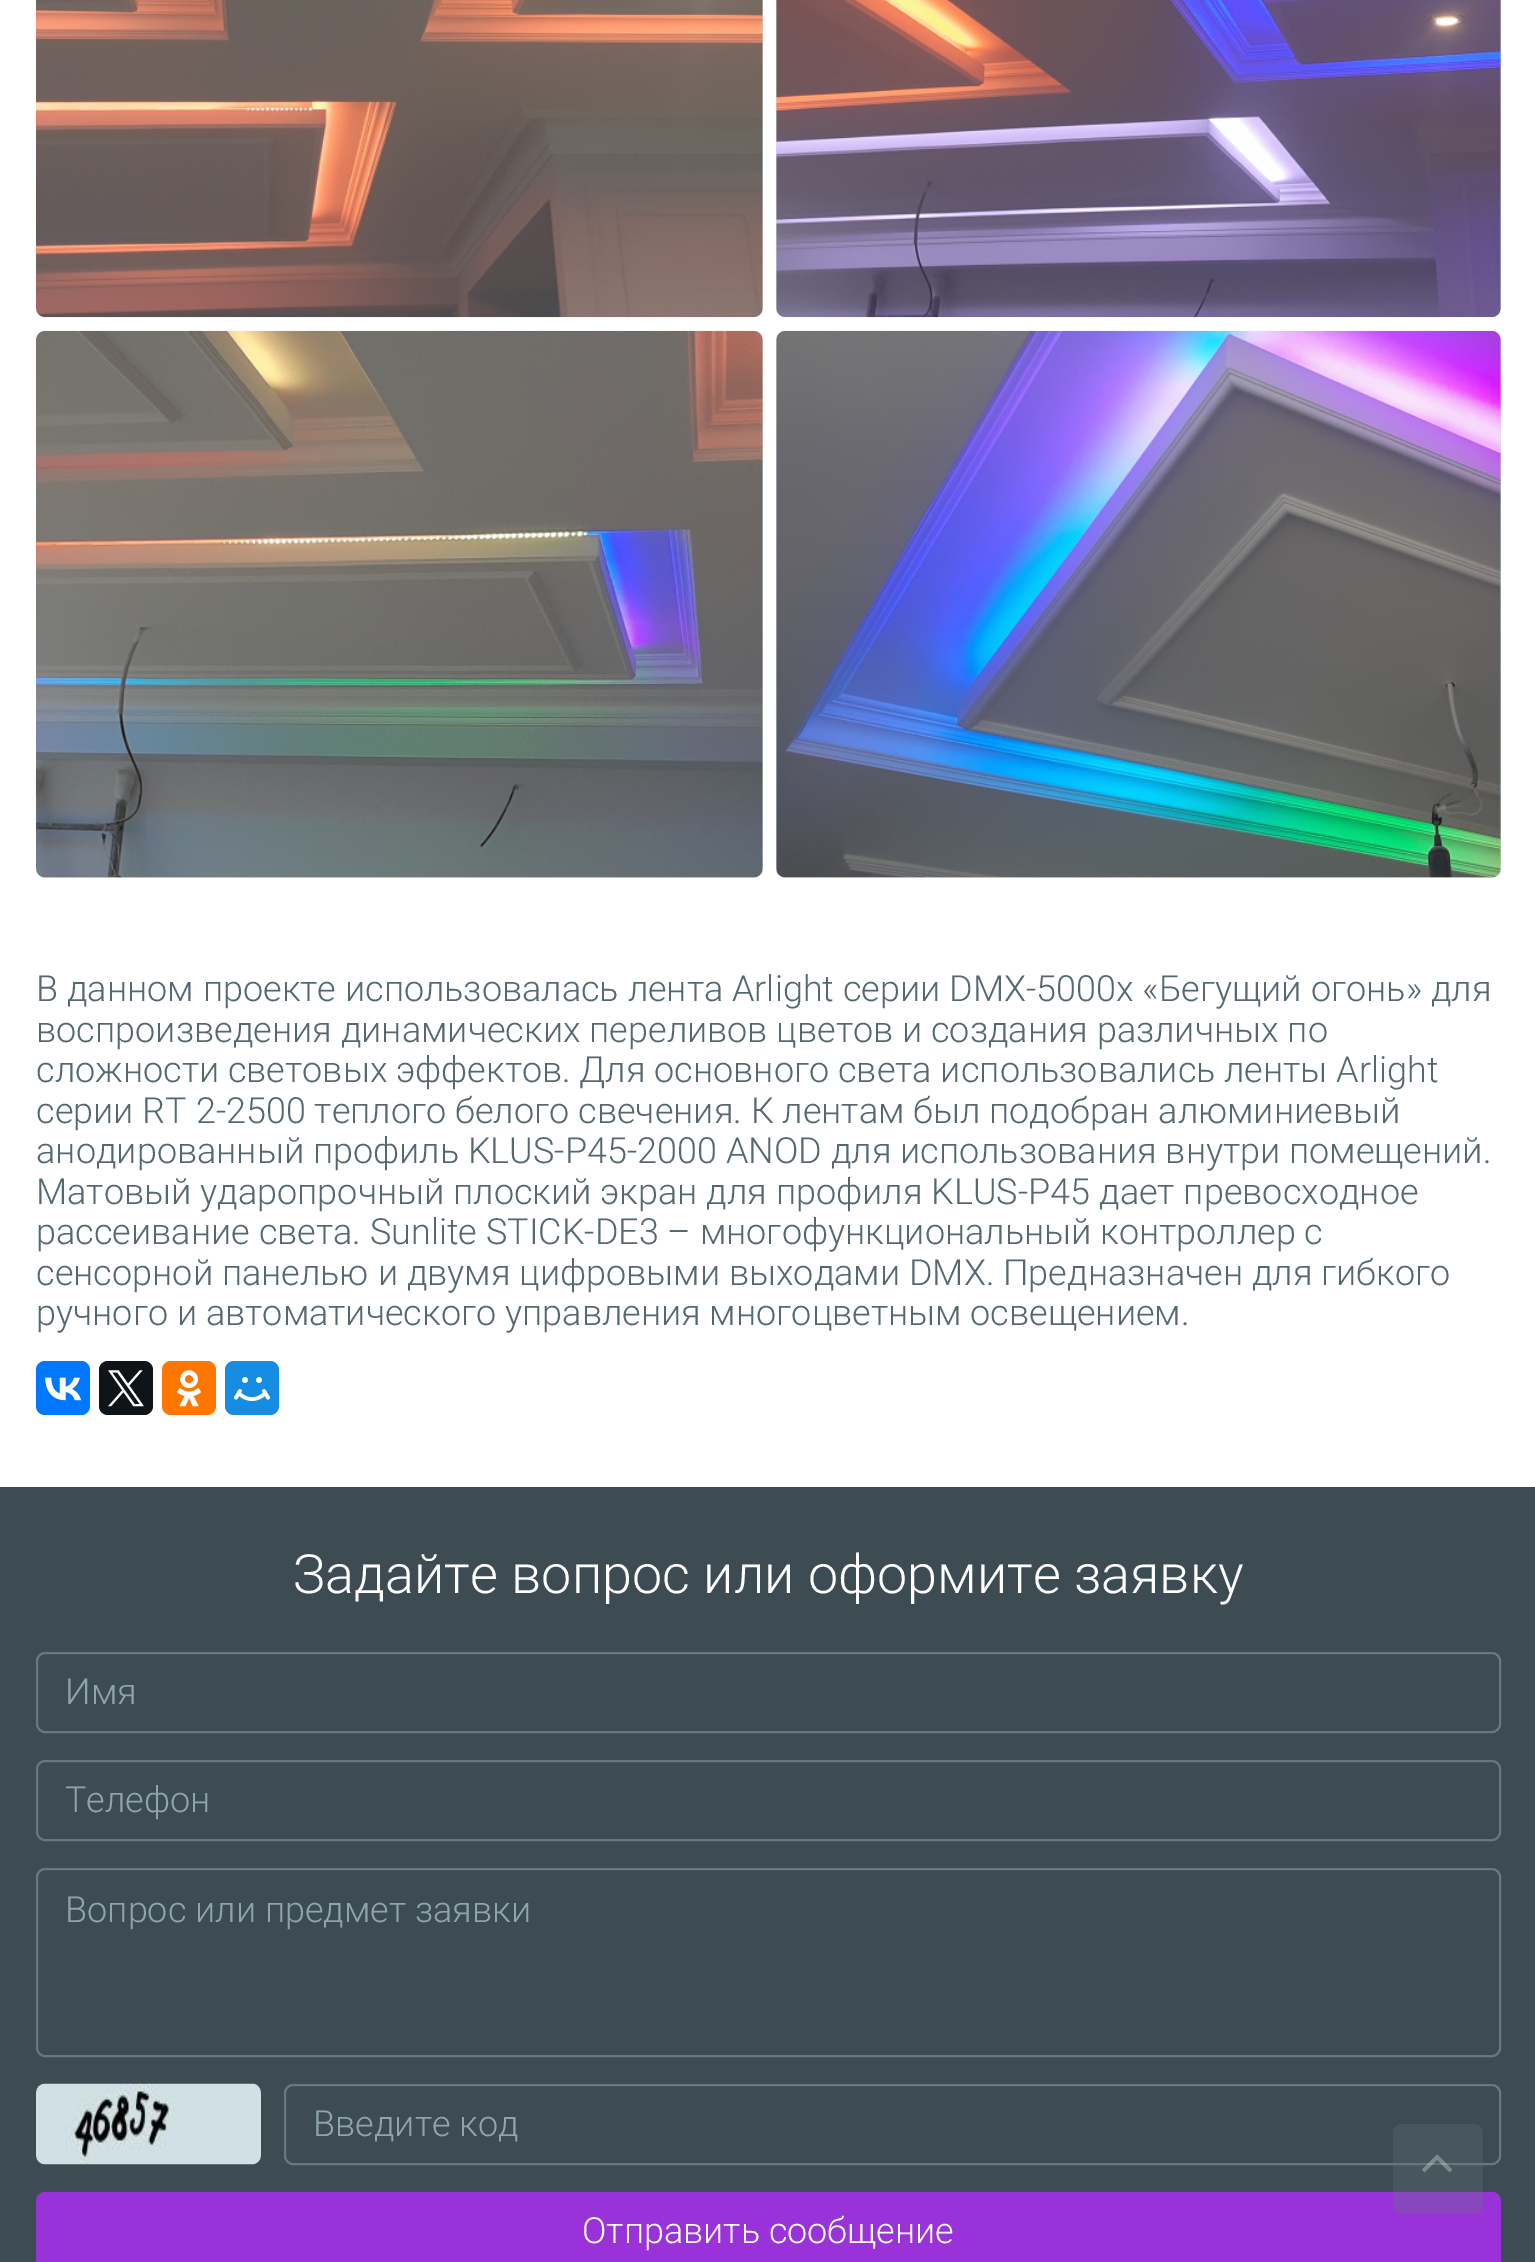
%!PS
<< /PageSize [1535 2262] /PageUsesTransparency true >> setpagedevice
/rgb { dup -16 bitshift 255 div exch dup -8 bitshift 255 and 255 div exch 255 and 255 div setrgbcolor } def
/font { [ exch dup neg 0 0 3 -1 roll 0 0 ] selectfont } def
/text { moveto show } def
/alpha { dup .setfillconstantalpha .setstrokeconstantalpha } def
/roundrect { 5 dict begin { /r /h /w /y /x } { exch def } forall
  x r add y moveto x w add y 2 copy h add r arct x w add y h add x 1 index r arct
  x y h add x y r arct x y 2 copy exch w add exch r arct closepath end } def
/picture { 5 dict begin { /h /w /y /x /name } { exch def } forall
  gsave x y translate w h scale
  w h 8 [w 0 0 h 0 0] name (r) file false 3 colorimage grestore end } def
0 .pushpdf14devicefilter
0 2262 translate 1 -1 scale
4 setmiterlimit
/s1 { /Roboto-Light 36 font 16#55686E rgb } def
/s2 { /Roboto-Light 54 font 16#FFFFFF rgb } def
/s3 { /Roboto-Light 36 font 16#8EA6AB rgb } def
/s4 { /Roboto-Light 36 font 16#FFFFFF rgb } def
16#FFFFFF rgb
0 0 1535 2262 rectfill
16#D0E0E3 rgb
36 -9 727 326 9 roundrect fill
(pic1.raw) 36 0 727 318 picture
776 -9 725 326 9 roundrect fill
(pic2.raw) 776 0 725 318 picture
36 331 727 547 9 roundrect fill
(pic3.raw) 36 330 727 548 picture
776 331 725 547 9 roundrect fill
(pic4.raw) 776 330 725 548 picture
s1
(В данном проекте использовалась лента Arlight серии DMX-5000х «Бегущий огонь» для) 36 1001 text
(воспроизведения динамических переливов цветов и создания различных по) 36 1042 text
(сложности световых эффектов. Для основного света использовались ленты Arlight) 36 1082 text
(серии RT 2-2500 теплого белого свечения. К лентам был подобран алюминиевый) 36 1123 text
(анодированный профиль KLUS-P45-2000 ANOD для использования внутри помещений.) 36 1163 text
(Матовый ударопрочный плоский экран для профиля KLUS-P45 дает превосходное) 36 1204 text
(рассеивание света. Sunlite STICK-DE3 – многофункциональный контроллер с) 36 1244 text
(сенсорной панелью и двумя цифровыми выходами DMX. Предназначен для гибкого) 36 1285 text
(ручного и автоматического управления многоцветным освещением.) 36 1325 text
16#0077FF rgb
36 1361 54 54 9 roundrect fill
(pic5.raw) 45 1377 37 24 picture
16#0F1419 rgb
99 1361 54 54 9 roundrect fill
(pic6.raw) 108 1370 36 37 picture
16#FF7700 rgb
162 1361 54 54 9 roundrect fill
(pic7.raw) 177 1370 25 37 picture
16#168DE2 rgb
225 1361 54 54 9 roundrect fill
(pic8.raw) 234 1377 36 24 picture
16#3D4B52 rgb
0 1487 1535 775 rectfill
s2
(Задайте вопрос или оформите заявку) 293 1593 text
16#66797F rgb
2 setlinewidth
37 1653 1463 79 8 roundrect stroke
s3
(Имя) 65 1704 text
16#66797F rgb
37 1761 1463 79 8 roundrect stroke
s3
(Телефон) 65 1812 text
16#66797F rgb
37 1869 1463 187 8 roundrect stroke
s3
(Вопрос или предмет заявки) 65 1922 text
(pic9.raw) 36 2083 225 82 picture
16#66797F rgb
285 2085 1215 79 8 roundrect stroke
s3
(Введите код) 313 2136 text
16#9933D9 rgb
36 2192 1465 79 9 roundrect fill
s4
(Отправить сообщение) 582 2243 text
0.3 alpha
16#61747A rgb
1393 2124 90 90 9 roundrect fill
1 alpha
(pic10.raw) 1422 2154 31 19 picture
.poppdf14devicefilter showpage
